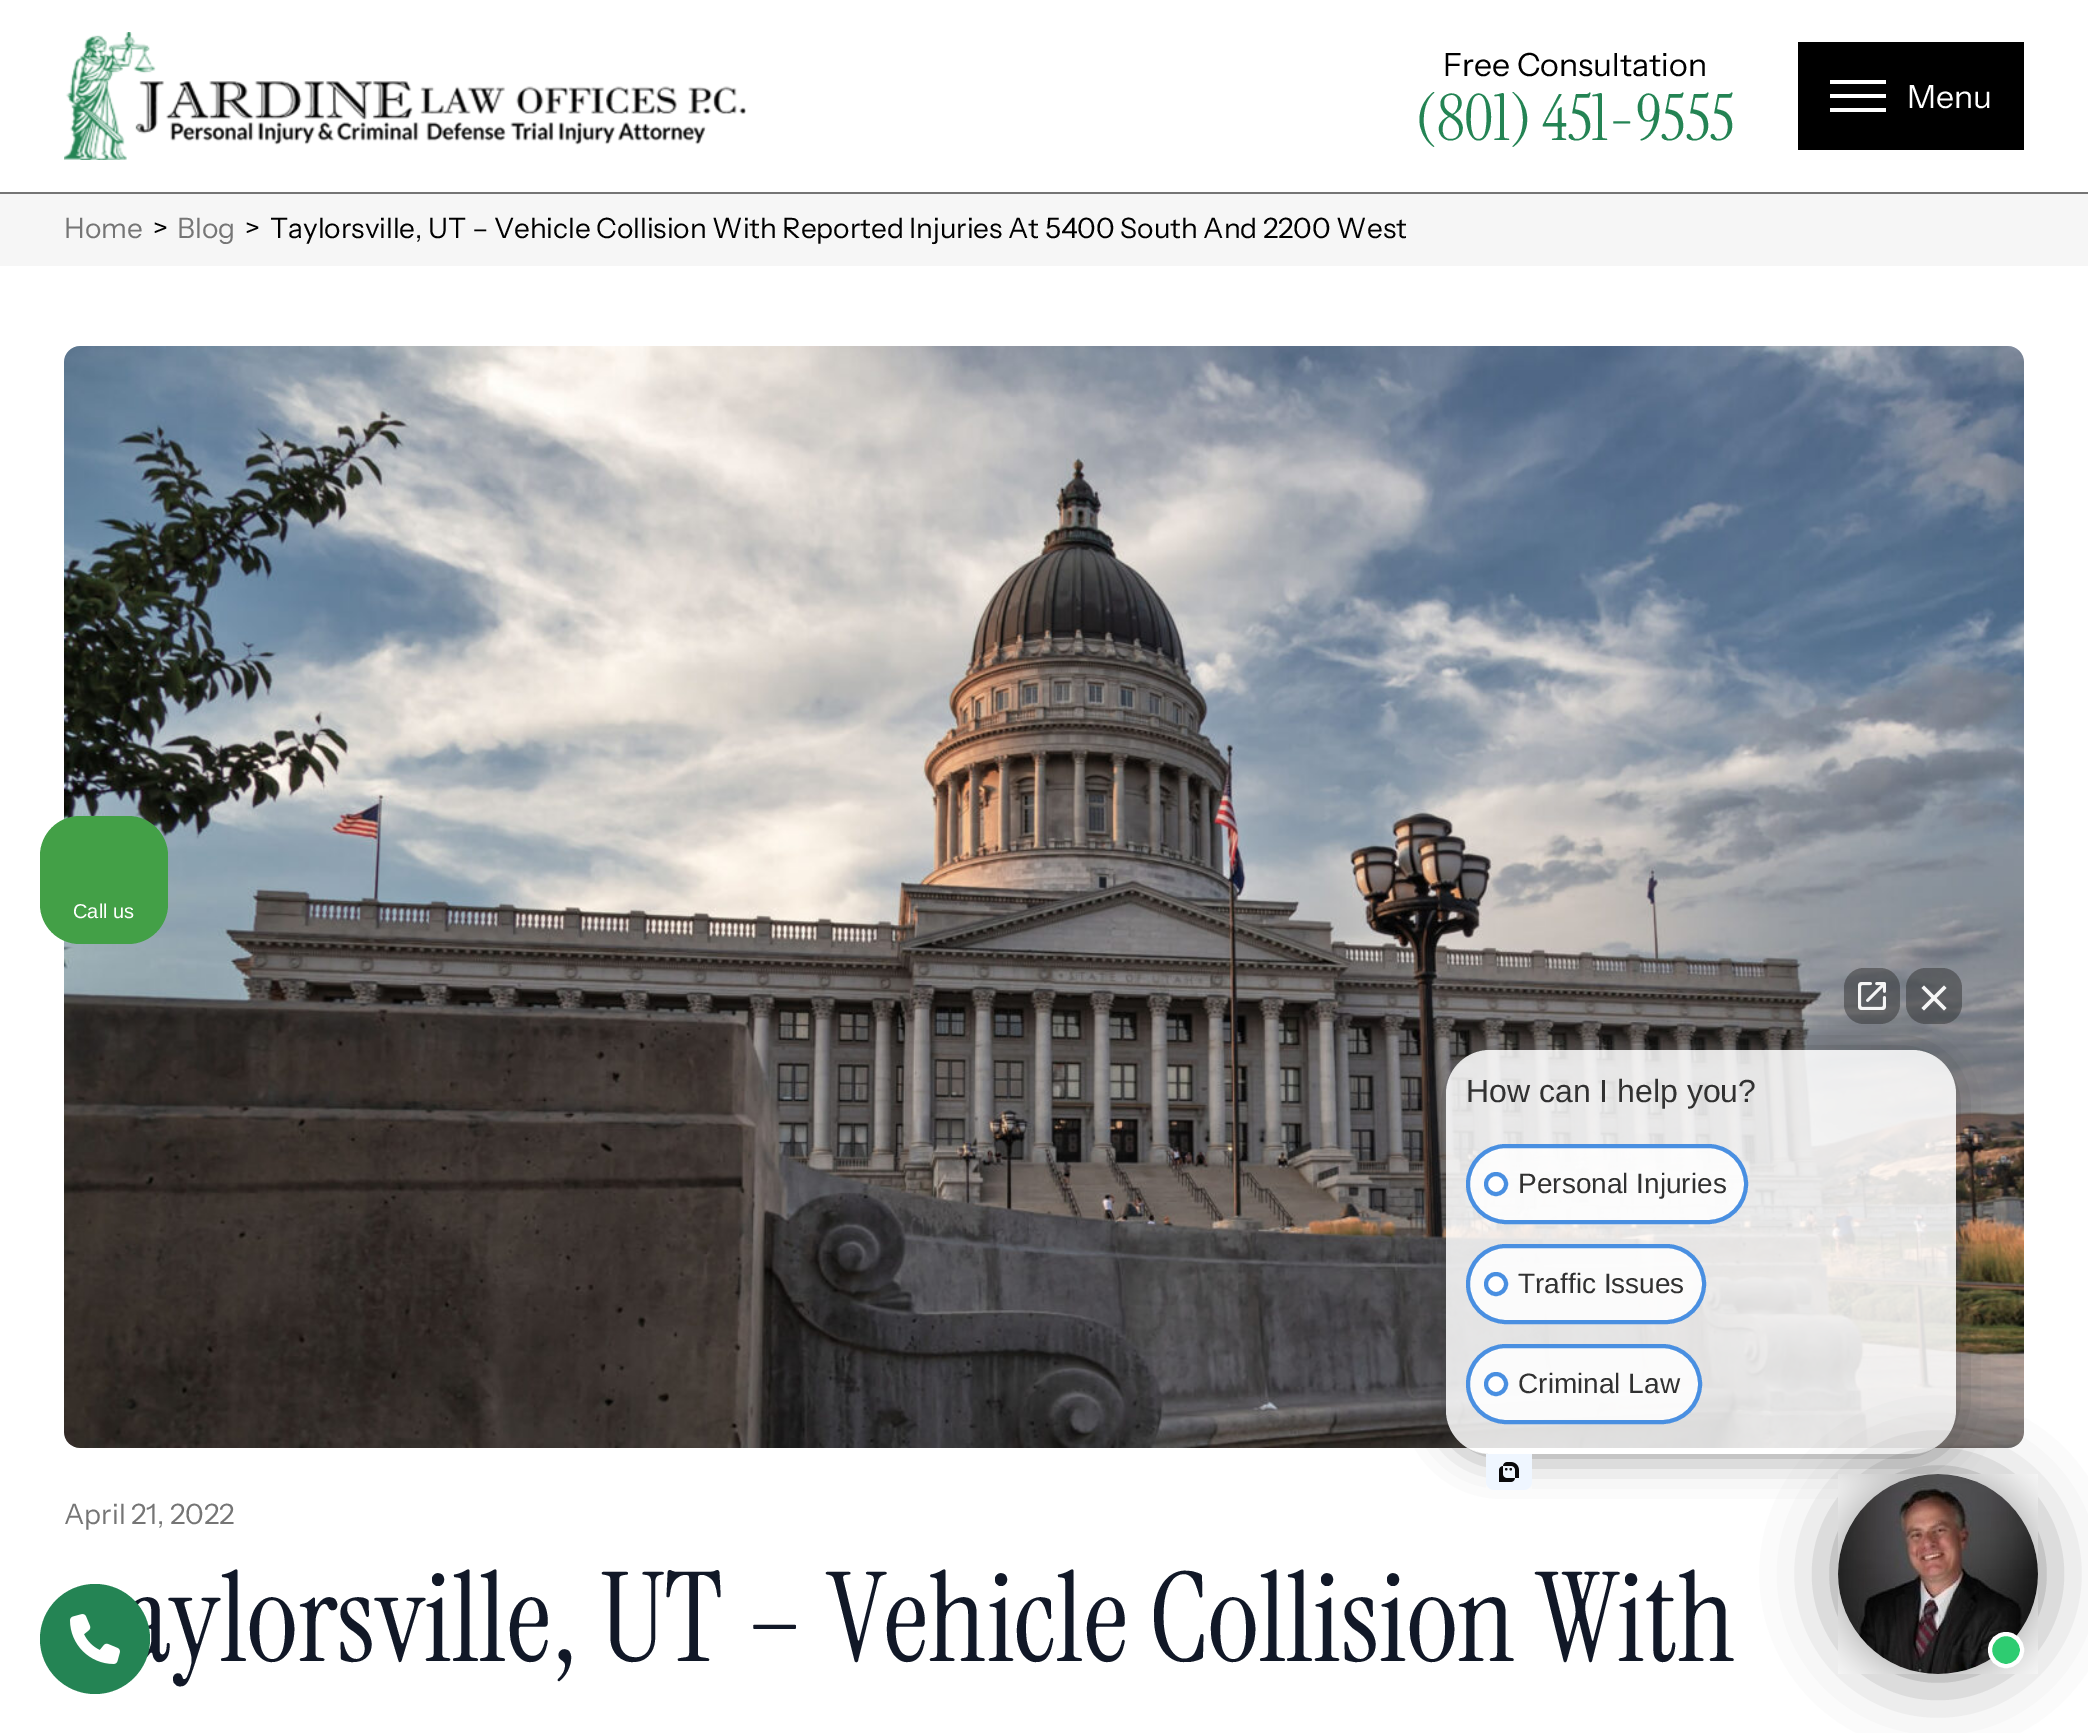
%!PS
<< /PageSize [2088 1733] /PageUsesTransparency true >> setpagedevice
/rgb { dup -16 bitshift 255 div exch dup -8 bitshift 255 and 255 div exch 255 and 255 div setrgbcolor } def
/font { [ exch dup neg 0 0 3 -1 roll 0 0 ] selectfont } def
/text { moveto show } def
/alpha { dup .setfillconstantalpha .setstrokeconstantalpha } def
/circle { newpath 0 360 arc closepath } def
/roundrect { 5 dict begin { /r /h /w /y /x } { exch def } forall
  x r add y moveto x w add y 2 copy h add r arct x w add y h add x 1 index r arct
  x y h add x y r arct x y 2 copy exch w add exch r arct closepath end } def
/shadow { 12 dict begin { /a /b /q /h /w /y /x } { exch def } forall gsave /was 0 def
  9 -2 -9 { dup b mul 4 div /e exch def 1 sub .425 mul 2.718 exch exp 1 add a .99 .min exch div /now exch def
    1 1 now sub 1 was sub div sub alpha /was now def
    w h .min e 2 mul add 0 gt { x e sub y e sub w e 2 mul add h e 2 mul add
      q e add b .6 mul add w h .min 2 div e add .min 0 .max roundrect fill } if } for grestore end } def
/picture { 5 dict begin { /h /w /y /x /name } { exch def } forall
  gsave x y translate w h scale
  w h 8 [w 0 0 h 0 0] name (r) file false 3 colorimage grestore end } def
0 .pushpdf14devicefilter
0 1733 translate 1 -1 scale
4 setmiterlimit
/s1 { /InstrumentSans-Regular 32 font 16#000000 rgb } def
/s2 { /InstrumentSerif-Regular 64 font 16#248454 rgb } def
/s3 { /InstrumentSans-Regular 32 font 16#FFFFFF rgb } def
/s4 { /InstrumentSans-Regular 28 font 16#757575 rgb } def
/s5 { /InstrumentSans-Regular 28 font 16#000000 rgb } def
/s6 { /LiberationSans-Regular 20 font 16#FFFFFF rgb } def
/s7 { /LiberationSans-Regular 32 font 16#313131 rgb } def
/s8 { /LiberationSans-Regular 28 font 16#313131 rgb } def
/s9 { /InstrumentSerif-Regular 124 font 16#111827 rgb } def
16#FFFFFF rgb
0 0 2088 1733 rectfill
16#757575 rgb
0 192 2088 2 rectfill
(pic1.raw) 64 32 682 128 picture
s1
(Free Consultation) 1443 76 text
s2
(\(801\) 451-9555) 1415 140 text
16#000000 rgb
1798 42 226 108 rectfill
16#FFFFFF rgb
1830 94 56 4 rectfill
1830 80 56 4 rectfill
1830 108 56 4 rectfill
s3
(Menu) 1907 108 text
16#F6F6F6 rgb
0 194 2088 72 rectfill
s4
(Home) 64 238 text
s5
(>) 153 238 text
s4
(Blog) 177 238 text
s5
(>) 245 238 text
(Taylorsville, UT – Vehicle Collision With Reported Injuries At 5400 South And 2200 West) 270 238 text
(pic5.raw) 64 346 1960 1102 picture
16#43A047 rgb
40 816 128 128 40 roundrect fill
s6
(Call us) 73 918 text
gsave
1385 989 moveto 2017 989 lineto 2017 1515 lineto 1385 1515 lineto closepath 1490 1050 moveto 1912 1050 lineto 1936.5 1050 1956 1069.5 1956 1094 curveto 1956 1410 lineto 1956 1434.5 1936.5 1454 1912 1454 curveto 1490 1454 lineto 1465.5 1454 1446 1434.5 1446 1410 curveto 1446 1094 lineto 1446 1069.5 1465.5 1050 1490 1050 curveto closepath eoclip newpath
16#3C3C3C rgb
1446 1050 510 404 44 20 0.6 shadow
grestore
0.85 alpha
1446 1050 510 404 44 roundrect fill
0.45 alpha
16#272727 rgb
1844 968 56 56 20 roundrect fill
1 alpha
(pic2.raw) 1858 982 28 28 picture
0.45 alpha
1906 968 56 56 20 roundrect fill
1 alpha
16#F5F5F5 rgb
1921.5 988 moveto 1924 985.5 lineto 1946.5 1008 lineto 1944 1010.5 lineto closepath fill
1944 985.5 moveto 1946.5 988 lineto 1924 1010.5 lineto 1921.5 1008 lineto closepath fill
s7
(How can I help you?) 1466 1102 text
0.85 alpha
16#FFFFFF rgb
1468 1146 278 76 38 roundrect fill
1 alpha
16#498FE1 rgb
4 setlinewidth
1468 1146 278 76 38 roundrect stroke
16#FFFFFF rgb
1496 1184 10 circle gsave fill grestore
16#498FE1 rgb
stroke
s8
(Personal Injuries) 1518 1193 text
0.85 alpha
16#FFFFFF rgb
1468 1246 236 76 38 roundrect fill
1 alpha
16#498FE1 rgb
1468 1246 236 76 38 roundrect stroke
16#FFFFFF rgb
1496 1284 10 circle gsave fill grestore
16#498FE1 rgb
stroke
s8
(Traffic Issues) 1518 1293 text
0.85 alpha
16#FFFFFF rgb
1468 1346 232 76 38 roundrect fill
1 alpha
16#498FE1 rgb
1468 1346 232 76 38 roundrect stroke
16#FFFFFF rgb
1496 1384 10 circle gsave fill grestore
16#498FE1 rgb
stroke
s8
(Criminal Law) 1518 1393 text
(pic3.raw) 1486 1454 46 36 picture
16#3C3C3C rgb
1838 1474 200 200 100 35 0.6 shadow
(pic4.raw) 1838 1474 200 200 picture
16#2ECC71 rgb
2006 1650 16 circle gsave fill grestore
16#FFFFFF rgb
stroke
s4
(April 21, 2022) 64 1524 text
s9
(aylorsville, UT – Vehicle Collision With) 121 1661 text
16#248454 rgb
95 1639 55 circle fill
(pic6.raw) 70 1614 50 50 picture
.poppdf14devicefilter showpage
